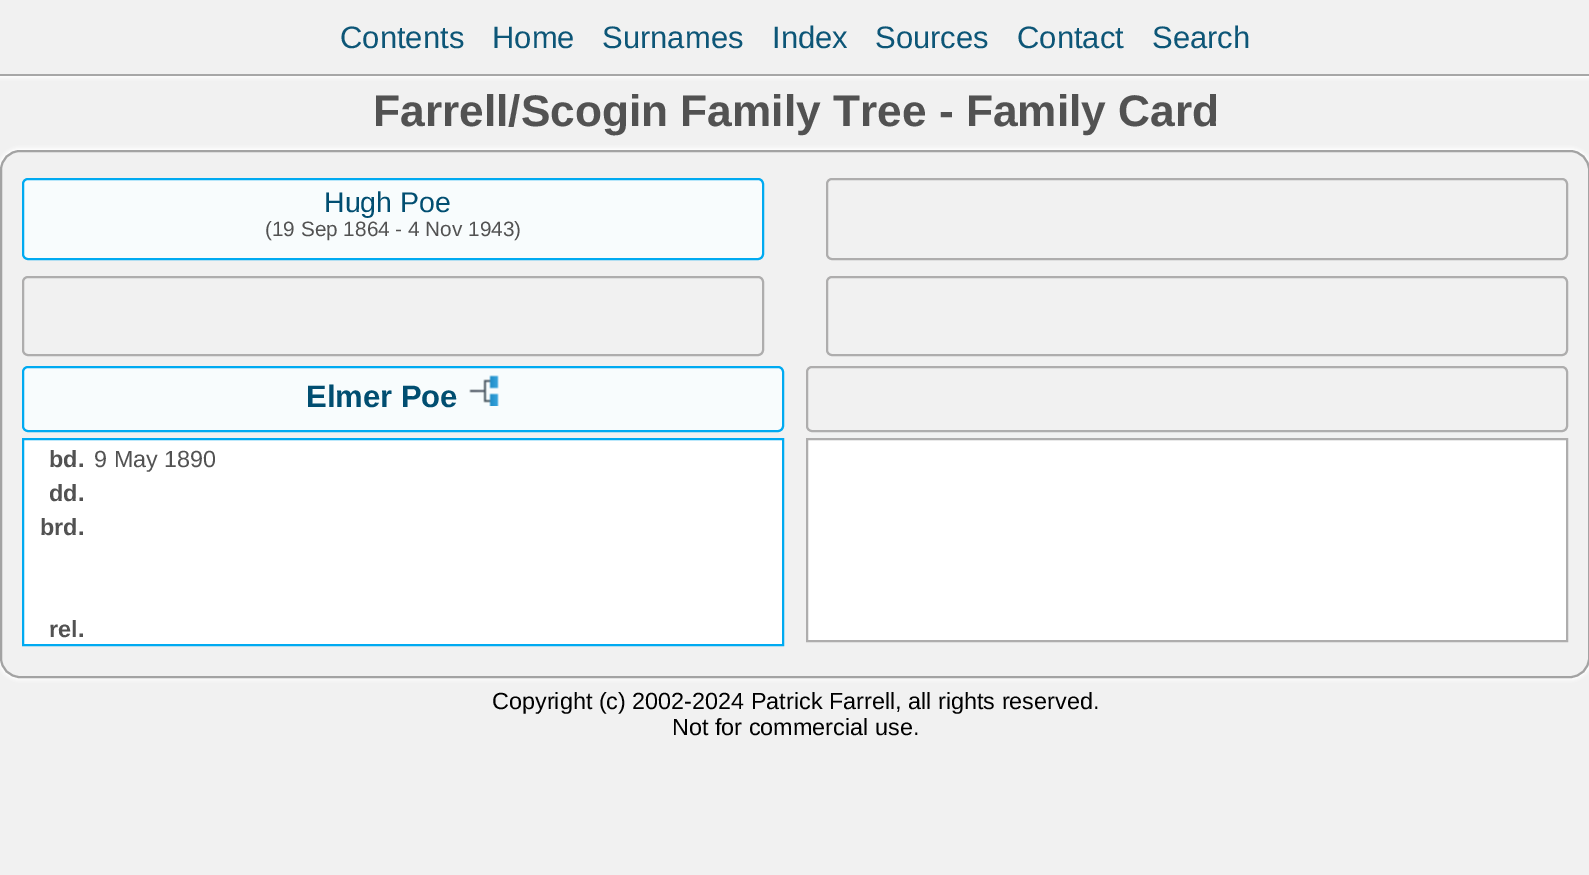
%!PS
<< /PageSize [1589 875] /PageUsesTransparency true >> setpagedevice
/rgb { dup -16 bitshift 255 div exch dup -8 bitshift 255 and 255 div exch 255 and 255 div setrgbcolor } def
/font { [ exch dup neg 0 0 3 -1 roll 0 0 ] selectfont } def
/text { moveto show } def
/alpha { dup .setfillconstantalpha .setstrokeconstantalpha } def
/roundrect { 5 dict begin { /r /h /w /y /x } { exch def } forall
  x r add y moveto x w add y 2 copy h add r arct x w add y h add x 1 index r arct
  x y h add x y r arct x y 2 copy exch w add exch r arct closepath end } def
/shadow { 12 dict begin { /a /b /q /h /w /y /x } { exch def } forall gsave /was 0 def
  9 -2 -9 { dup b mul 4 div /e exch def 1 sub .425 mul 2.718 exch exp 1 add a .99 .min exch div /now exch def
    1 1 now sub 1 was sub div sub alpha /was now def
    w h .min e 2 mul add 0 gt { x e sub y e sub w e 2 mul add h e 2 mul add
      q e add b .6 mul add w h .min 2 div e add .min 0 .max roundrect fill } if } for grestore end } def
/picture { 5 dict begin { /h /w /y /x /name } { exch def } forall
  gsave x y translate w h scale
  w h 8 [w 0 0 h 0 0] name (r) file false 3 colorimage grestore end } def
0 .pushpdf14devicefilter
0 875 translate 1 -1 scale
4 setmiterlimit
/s1 { /LiberationSans-Regular 31 font 16#0D5677 rgb } def
/s2 { /LiberationSans-Bold 44.25 font 16#525252 rgb } def
/s3 { /LiberationSans-Regular 28.5 font 16#014E71 rgb } def
/s4 { /LiberationSans-Regular 20.75 font 16#525252 rgb } def
/s5 { /LiberationSans-Bold 31 font 16#014E71 rgb } def
/s6 { /LiberationSans-Bold 23.4 font 16#525252 rgb } def
/s7 { /LiberationSans-Regular 23.4 font 16#525252 rgb } def
/s8 { /LiberationSans-Regular 23.4 font 16#000000 rgb } def
16#F1F1F1 rgb
0 0 1589 875 rectfill
gsave
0 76 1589 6 rectclip
16#FEFEFE rgb
-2 -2 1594 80 0 2 1 shadow
grestore
16#A7A7A7 rgb
0 74 1589 2 rectfill
s1
(Contents) 340 48 text
(Home) 492 48 text
(Surnames) 602 48 text
(Index) 772 48 text
(Sources) 875 48 text
(Contact) 1017 48 text
(Search) 1152 48 text
s2
(Farrell/Scogin Family Tree - Family Card) 373 126 text
16#FFFFFF rgb
-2 148 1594 532 22 2 1 shadow
16#F1F1F1 rgb
1 151 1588 526 19 roundrect gsave fill grestore
16#A3A3A3 rgb
2 setlinewidth
stroke
16#F8FCFD rgb
23 179 740 80 5 roundrect gsave fill grestore
16#00AAF1 rgb
stroke
s3
(Hugh Poe) 324 212 text
s4
(\(19 Sep 1864 - 4 Nov 1943\)) 265 236 text
16#AEADAD rgb
827 179 740 80 5 roundrect stroke
23 277 740 78 5 roundrect stroke
827 277 740 78 5 roundrect stroke
16#F8FCFD rgb
23 367 760 64 5 roundrect gsave fill grestore
16#00AAF1 rgb
stroke
s5
(Elmer Poe) 306 407 text
(pic1.raw) 469 375 30 31 picture
16#AEADAD rgb
807 367 760 64 5 roundrect stroke
16#FFFFFF rgb
23 439 moveto 783 439 lineto 783 645 lineto 23 645 lineto closepath gsave fill grestore
16#00AAF1 rgb
stroke
s6
(bd.) 49 467 text
s7
(9 May 1890) 94 467 text
s6
(dd.) 49 501 text
(brd.) 40 535 text
(rel.) 49 637 text
16#FFFFFF rgb
807 439 moveto 1567 439 lineto 1567 641 lineto 807 641 lineto closepath gsave fill grestore
16#AEADAD rgb
stroke
s8
(Copyright \(c\) 2002-2024 Patrick Farrell, all rights reserved.) 492 709 text
(Not for commercial use.) 672 735 text
.poppdf14devicefilter showpage
